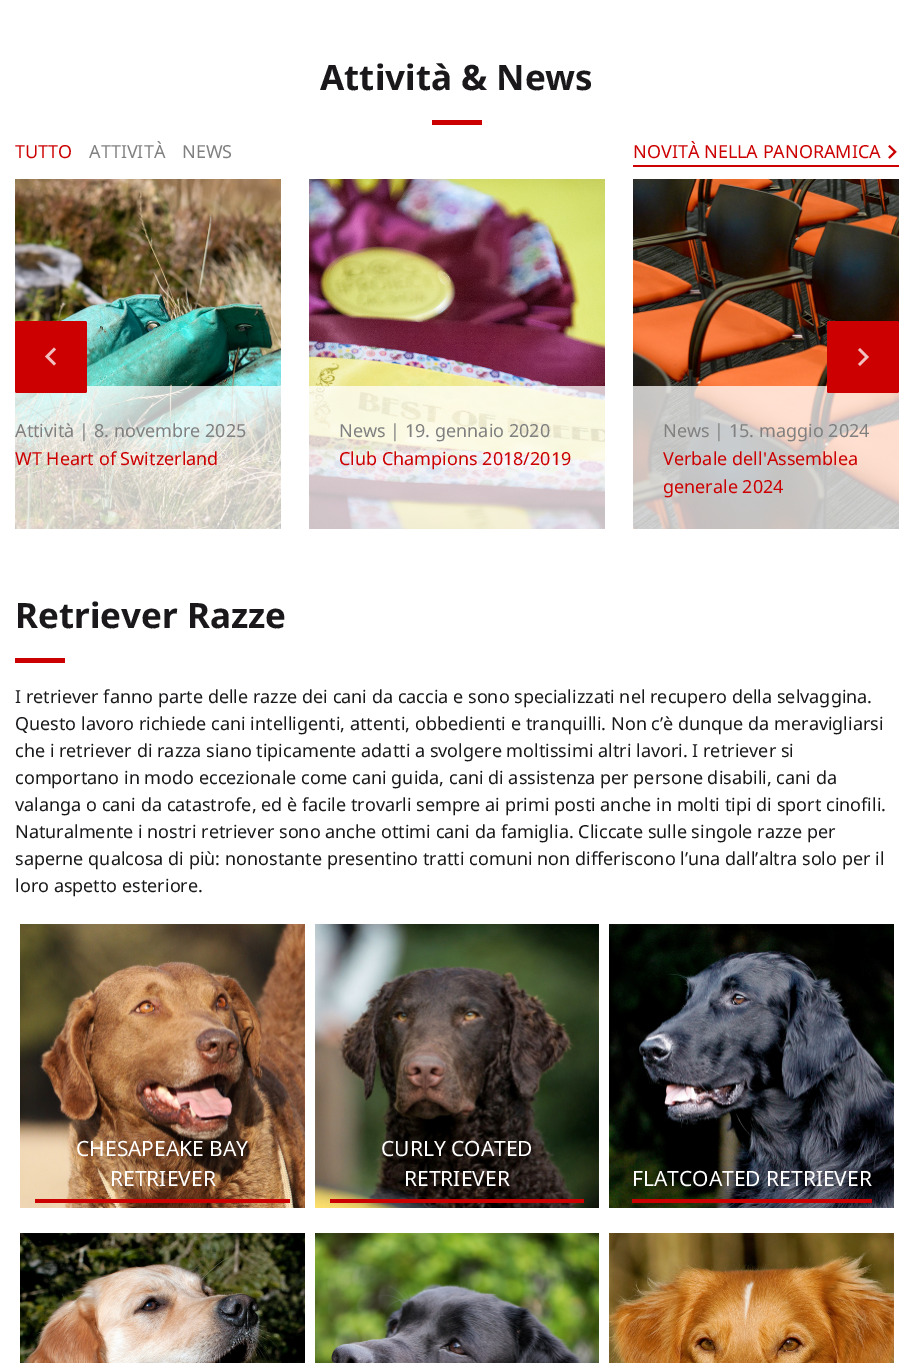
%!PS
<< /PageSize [914 1363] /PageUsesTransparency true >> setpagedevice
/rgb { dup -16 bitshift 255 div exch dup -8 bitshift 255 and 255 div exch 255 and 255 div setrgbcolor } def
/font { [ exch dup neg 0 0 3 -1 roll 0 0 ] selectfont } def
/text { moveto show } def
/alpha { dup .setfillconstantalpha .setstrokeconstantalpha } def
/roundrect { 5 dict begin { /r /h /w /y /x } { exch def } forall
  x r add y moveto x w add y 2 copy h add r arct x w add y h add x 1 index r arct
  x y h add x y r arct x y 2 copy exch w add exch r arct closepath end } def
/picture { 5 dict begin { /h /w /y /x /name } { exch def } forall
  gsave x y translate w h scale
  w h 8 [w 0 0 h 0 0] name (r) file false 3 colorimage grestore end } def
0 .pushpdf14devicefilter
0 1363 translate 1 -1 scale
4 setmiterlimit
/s1 { /NotoSans-Bold 35 font 16#1A181B rgb } def
/s2 { /NotoSans-Regular 18 font 16#CC0001 rgb } def
/s3 { /NotoSans-Regular 18 font 16#808080 rgb } def
/s4 { /NotoSans-Regular 18 font 16#1A181B rgb } def
/s5 { /NotoSans-Regular 21 font 16#FFFFFF rgb } def
16#FFFFFF rgb
0 0 914 1363 rectfill
s1
(Attività & News) 320 90 text
16#CC0001 rgb
432 120 50 5 rectfill
s2
(TUTTO) 15 158 text
s3
(ATTIVITÀ) 89 158 text
(NEWS) 182 158 text
16#CC0001 rgb
633 165 266 2 rectfill
(NOVITÀ NELLA PANORAMICA) 633 158 text
(pic1.raw) 888 145 9 14 picture
(pic2.raw) 15 179 266 350 picture
0.75 alpha
16#FFFFFF rgb
15 386 266 143 rectfill
1 alpha
16#CC0001 rgb
15 321 72 72 2 roundrect fill
16#F2BFC0 rgb
56 363.5 moveto 49 356.5 lineto 56 349.5 lineto 54 347.5 lineto 45 356.5 lineto 54 365.5 lineto closepath fill
(pic4.raw) 633 179 266 350 picture
0.75 alpha
16#FFFFFF rgb
633 386 266 143 rectfill
1 alpha
16#CC0001 rgb
827 321 72 72 2 roundrect fill
16#F2BFC0 rgb
858 350 moveto 865 357 lineto 858 364 lineto 860 366 lineto 869 357 lineto 860 348 lineto closepath fill
s3
(Attività | 8. novembre 2025) 15 437 text
s2
(WT Heart of Switzerland) 15 465 text
(pic3.raw) 309 179 296 350 picture
0.75 alpha
16#FFFFFF rgb
309 386 296 143 rectfill
1 alpha
s3
(News | 19. gennaio 2020) 339 437 text
s2
(Club Champions 2018/2019) 339 465 text
s3
(News | 15. maggio 2024) 663 437 text
s2
(Verbale dell'Assemblea) 663 465 text
(generale 2024) 663 493 text
s1
(Retriever Razze) 15 628 text
16#CC0001 rgb
15 658 50 5 rectfill
s4
(I retriever fanno parte delle razze dei cani da caccia e sono specializzati nel recupero della selvaggina.) 15 703 text
(Questo lavoro richiede cani intelligenti, attenti, obbedienti e tranquilli. Non c’è dunque da meravigliarsi) 15 730 text
(che i retriever di razza siano tipicamente adatti a svolgere moltissimi altri lavori. I retriever si) 15 757 text
(comportano in modo eccezionale come cani guida, cani di assistenza per persone disabili, cani da) 15 784 text
(valanga o cani da catastrofe, ed è facile trovarli sempre ai primi posti anche in molti tipi di sport cinofili.) 15 811 text
(Naturalmente i nostri retriever sono anche ottimi cani da famiglia. Cliccate sulle singole razze per) 15 838 text
(saperne qualcosa di più: nonostante presentino tratti comuni non differiscono l’una dall’altra solo per il) 15 865 text
(loro aspetto esteriore.) 15 892 text
(pic5.raw) 20 924 285 284 picture
s5
(CHESAPEAKE BAY) 76 1156 text
(RETRIEVER) 110 1186 text
16#CC0001 rgb
35 1199 255 4 rectfill
(pic6.raw) 315 924 284 284 picture
s5
(CURLY COATED) 381 1156 text
(RETRIEVER) 404 1186 text
16#CC0001 rgb
330 1199 254 4 rectfill
(pic7.raw) 609 924 285 284 picture
s5
(FLATCOATED RETRIEVER) 632 1186 text
16#CC0001 rgb
632 1199 240 4 rectfill
(pic8.raw) 20 1233 285 130 picture
(pic9.raw) 315 1233 284 130 picture
(pic10.raw) 609 1233 285 130 picture
.poppdf14devicefilter showpage
